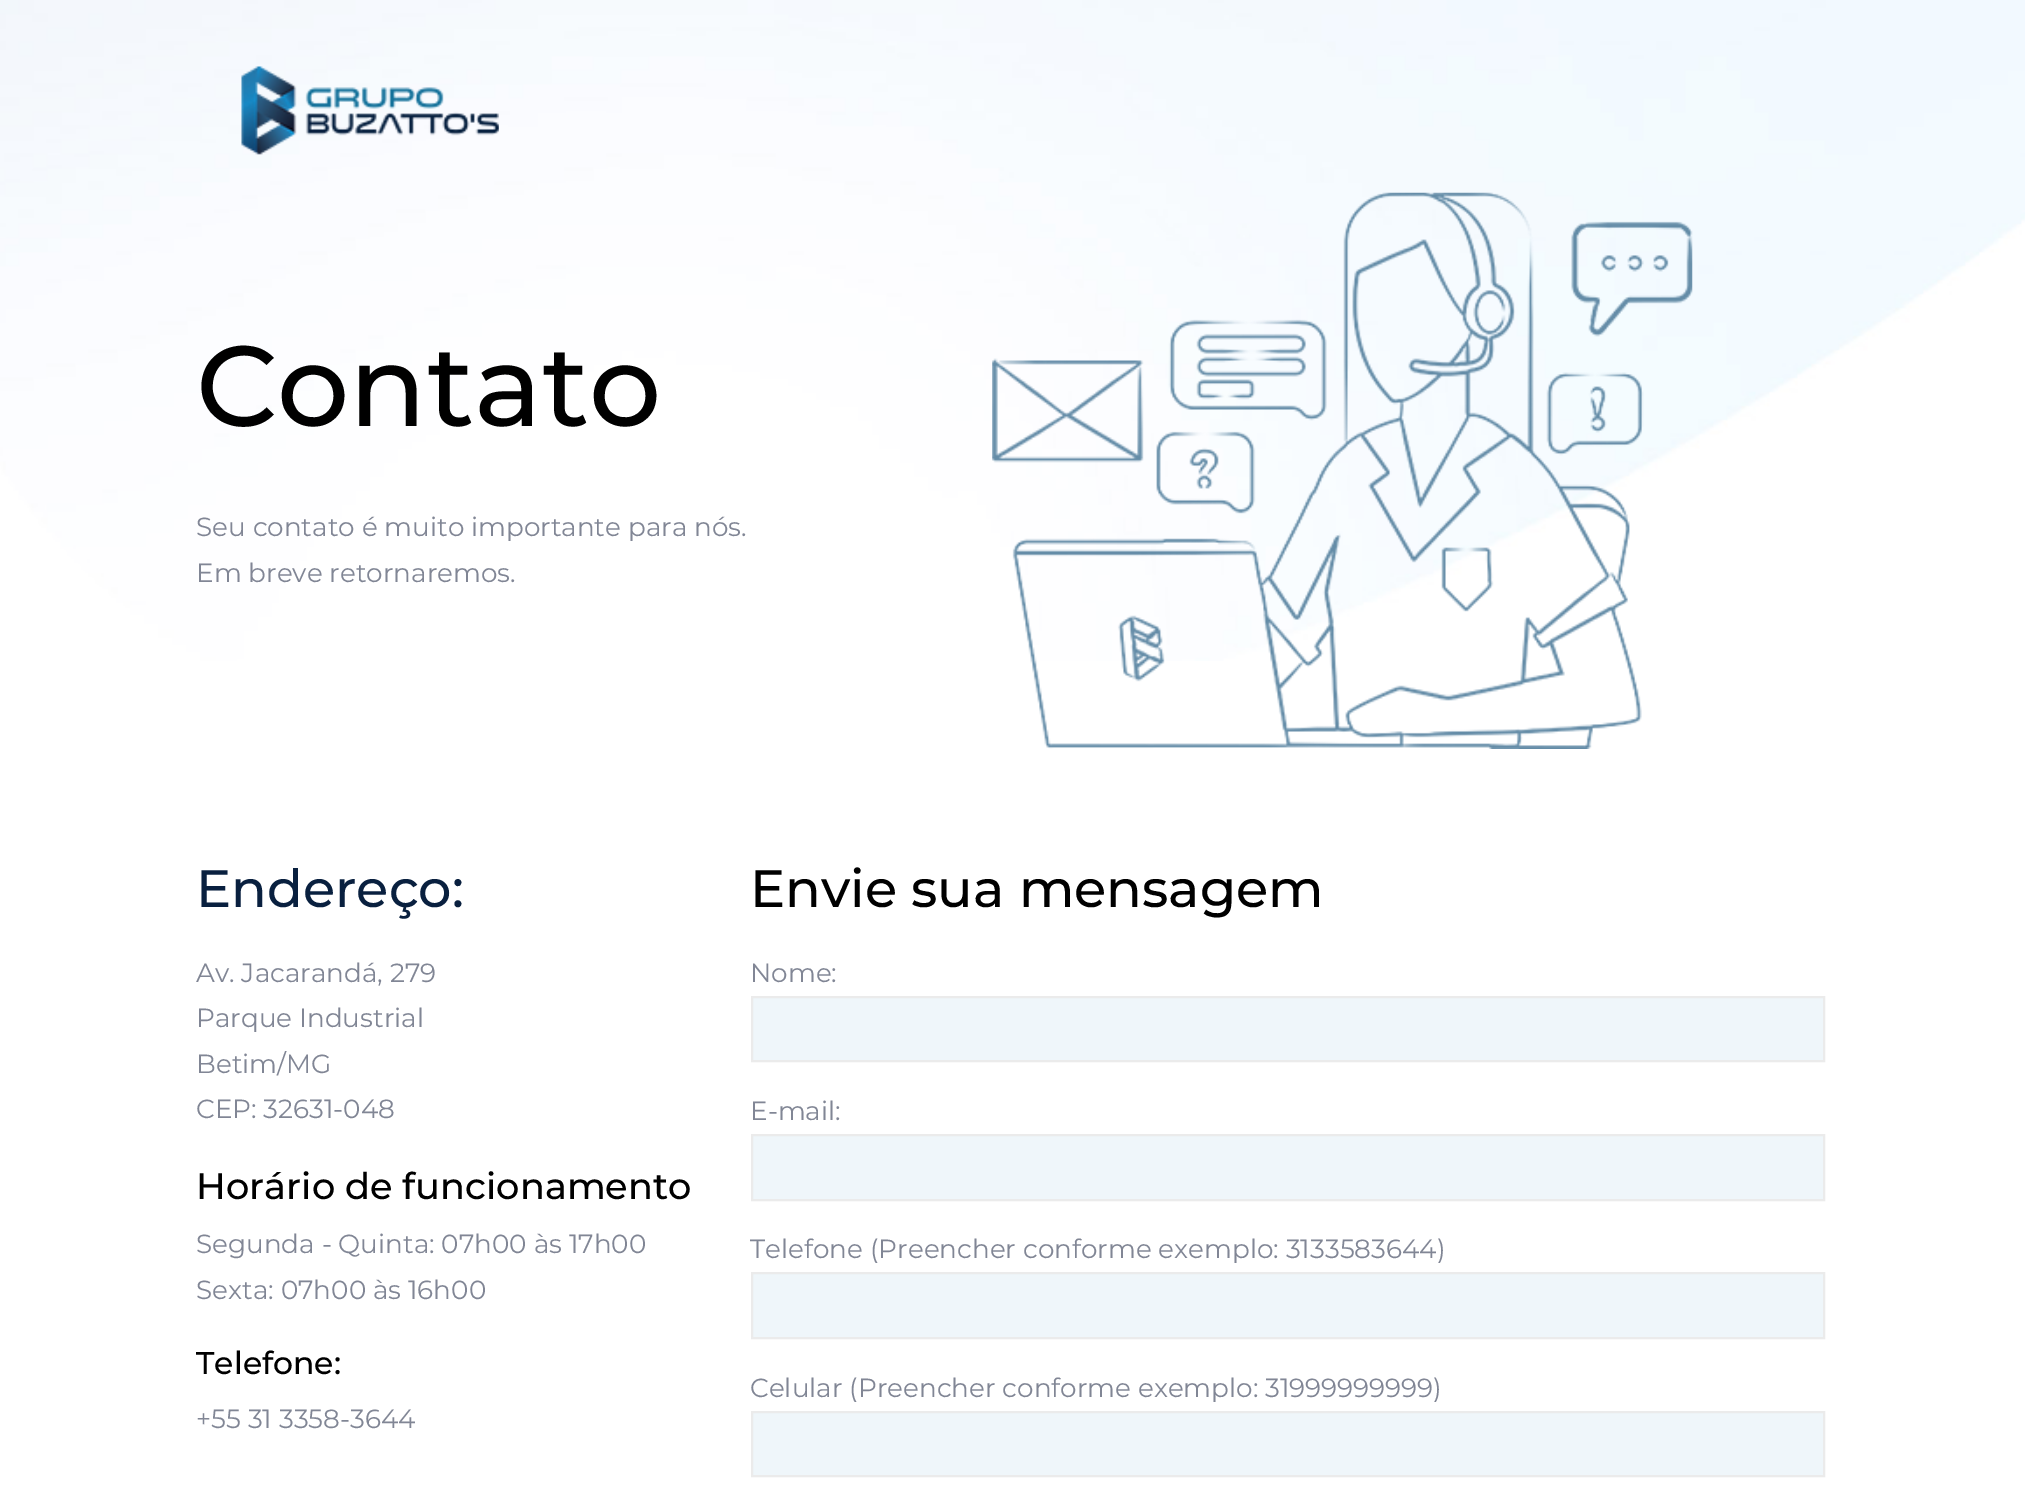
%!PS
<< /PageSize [2025 1512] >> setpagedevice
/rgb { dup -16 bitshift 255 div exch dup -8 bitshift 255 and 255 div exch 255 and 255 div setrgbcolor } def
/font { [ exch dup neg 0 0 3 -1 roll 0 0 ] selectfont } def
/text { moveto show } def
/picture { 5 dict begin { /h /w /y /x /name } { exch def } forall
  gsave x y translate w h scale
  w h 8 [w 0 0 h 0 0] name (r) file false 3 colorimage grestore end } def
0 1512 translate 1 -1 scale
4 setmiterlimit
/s1 { /Montserrat-Medium 113.75 font 16#000000 rgb } def
/s2 { /Montserrat-Regular 26.25 font 16#818695 rgb } def
/s3 { /Montserrat-Medium 52.5 font 16#09203F rgb } def
/s4 { /Montserrat-Medium 36.75 font 16#000000 rgb } def
/s5 { /Montserrat-Medium 31.5 font 16#000000 rgb } def
/s6 { /Montserrat-Medium 52.5 font 16#000000 rgb } def
16#FFFFFF rgb
0 0 2025 1512 rectfill
(pic2.raw) 0 0 2025 661 picture
(pic1.raw) 241 66 258 89 picture
s1
(Contato) 196 426 text
s2
(Seu contato é muito importante para nós.) 196 536 text
(Em breve retornaremos.) 196 582 text
(pic3.raw) 992 192 701 557 picture
s3
(Endereço:) 196 907 text
s2
(Av. Jacarandá, 279) 196 982 text
(Parque Industrial) 196 1027 text
(Betim/MG) 196 1073 text
(CEP: 32631-048) 196 1118 text
s4
(Horário de funcionamento) 196 1199 text
s2
(Segunda - Quinta: 07h00 às 17h00) 196 1253 text
(Sexta: 07h00 às 16h00) 196 1299 text
s5
(Telefone:) 196 1374 text
s2
(+55 31 3358-3644) 196 1428 text
s6
(Envie sua mensagem) 750 907 text
s2
(Nome:) 750 982 text
16#EFF6FA rgb
752 997 moveto 1824 997 lineto 1824 1061 lineto 752 1061 lineto closepath gsave fill grestore
16#EBEBEB rgb
2 setlinewidth
stroke
s2
(E-mail:) 750 1120 text
16#EFF6FA rgb
752 1135 moveto 1824 1135 lineto 1824 1200 lineto 752 1200 lineto closepath gsave fill grestore
16#EBEBEB rgb
stroke
s2
(Telefone \(Preencher conforme exemplo: 3133583644\)) 750 1258 text
16#EFF6FA rgb
752 1273 moveto 1824 1273 lineto 1824 1338 lineto 752 1338 lineto closepath gsave fill grestore
16#EBEBEB rgb
stroke
s2
(Celular \(Preencher conforme exemplo: 31999999999\)) 750 1397 text
16#EFF6FA rgb
752 1412 moveto 1824 1412 lineto 1824 1476 lineto 752 1476 lineto closepath gsave fill grestore
16#EBEBEB rgb
stroke
showpage
